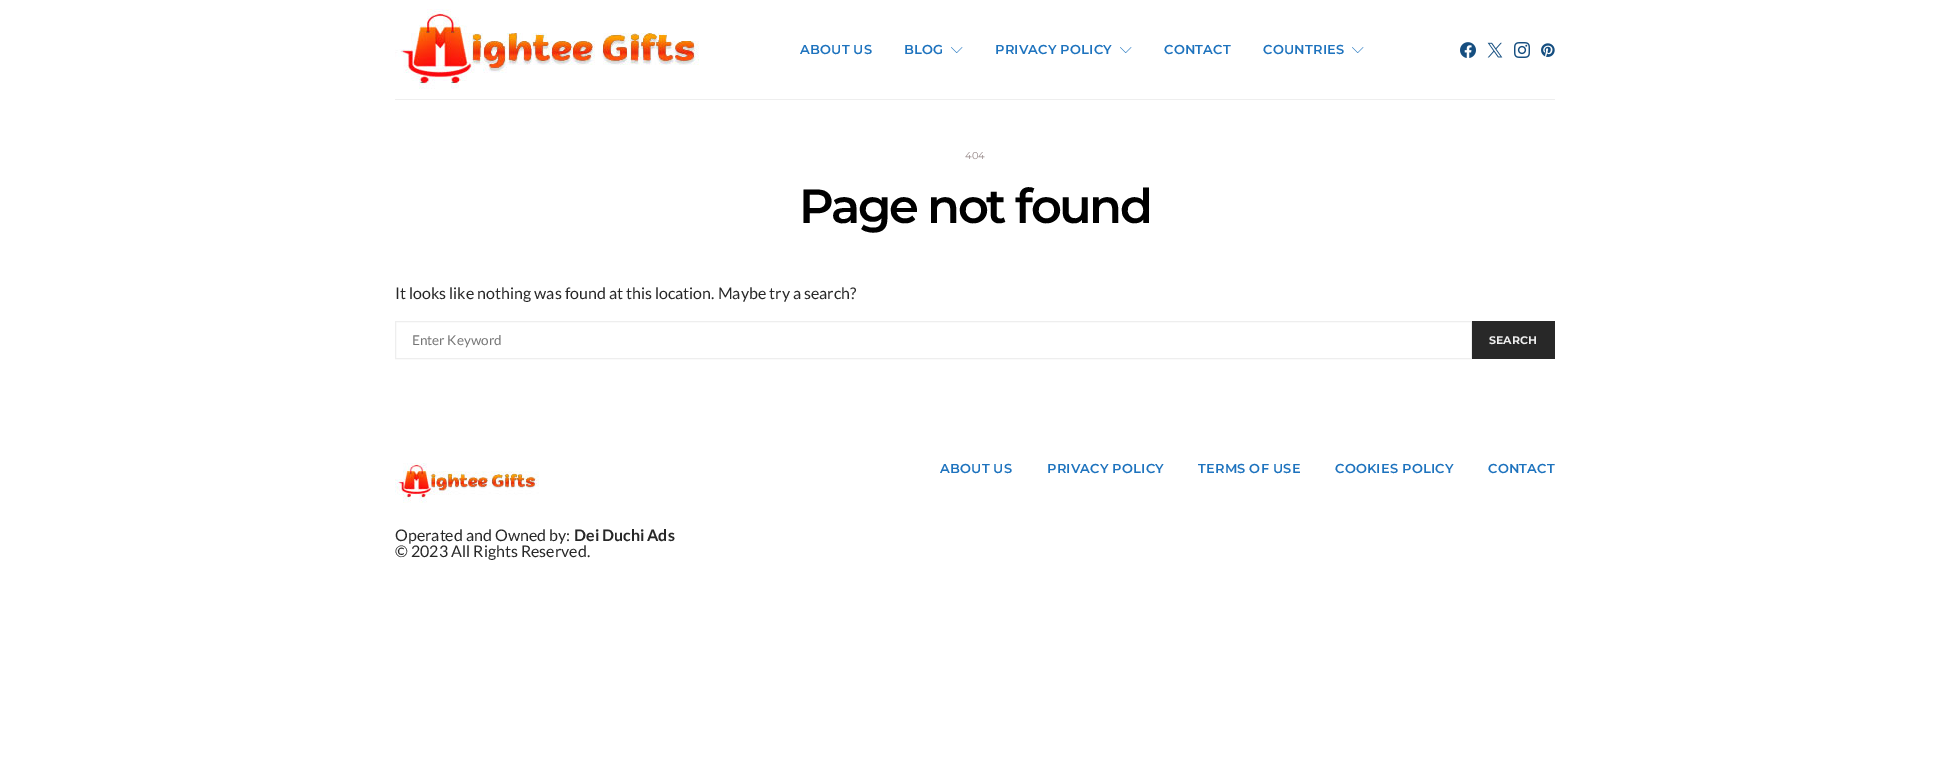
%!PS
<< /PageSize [1950 762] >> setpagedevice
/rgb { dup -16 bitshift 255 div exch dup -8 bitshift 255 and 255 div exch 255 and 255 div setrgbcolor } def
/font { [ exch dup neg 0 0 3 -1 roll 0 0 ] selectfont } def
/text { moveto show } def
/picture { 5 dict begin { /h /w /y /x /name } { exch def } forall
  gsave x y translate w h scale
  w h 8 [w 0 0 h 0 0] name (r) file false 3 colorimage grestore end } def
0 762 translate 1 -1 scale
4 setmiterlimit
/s1 { /Montserrat-Regular 10 font 16#998B8B rgb } def
/s2 { /Lato-Regular 16 font 16#282828 rgb } def
/s3 { /Lato-Regular 13.5 font 16#757575 rgb } def
/s4 { /Montserrat-Bold 11 font 16#EEEEEE rgb } def
/s5 { /Lato-Bold 16 font 16#282828 rgb } def
16#FFFFFF rgb
0 0 1950 762 rectfill
16#EEEEEE rgb
395 99 1160 1 rectfill
(pic1.raw) 395 9 304 80 picture
/Montserrat-SemiBold 13 font
16#1E73BE rgb
800 54 moveto 0.2 0 (ABOUT US) ashow
904 54 moveto 0.2 0 (BLOG) ashow
(pic2.raw) 951 47 12 6 picture
995 54 moveto 0.2 0 (PRIVACY POLICY) ashow
(pic2.raw) 1120 47 12 6 picture
1164 54 moveto 0.2 0 (CONTACT) ashow
1263 54 moveto 0.2 0 (COUNTRIES) ashow
(pic2.raw) 1352 47 12 6 picture
(pic3.raw) 1460 42 16 16 picture
(pic4.raw) 1487 42 16 16 picture
(pic5.raw) 1514 42 16 16 picture
(pic6.raw) 1541 43 14 14 picture
s1
(404) 965 159 text
/Montserrat-SemiBold 48 font
16#000000 rgb
799 223 moveto -2.4 0 (Page not found) ashow
s2
(It looks like nothing was found at this location. Maybe try a search?) 395 299 text
16#EEEEEE rgb
395.5 321.5 1076 37 rectstroke
s3
(Enter Keyword) 412 345 text
16#282828 rgb
1472 321 83 38 rectfill
s4
(SEARCH) 1489 344 text
(pic7.raw) 395 463 144 40 picture
/Montserrat-SemiBold 13 font
16#1E73BE rgb
940 473 moveto 0.2 0 (ABOUT US) ashow
1047 473 moveto 0.2 0 (PRIVACY POLICY) ashow
1198 473 moveto 0.2 0 (TERMS OF USE) ashow
1335 473 moveto 0.2 0 (COOKIES POLICY) ashow
1488 473 moveto 0.2 0 (CONTACT) ashow
s2
(Operated and Owned by:) 395 541 text
s5
(Dei Duchi Ads) 574 541 text
s2
(© 2023 All Rights Reserved.) 395 557 text
showpage
